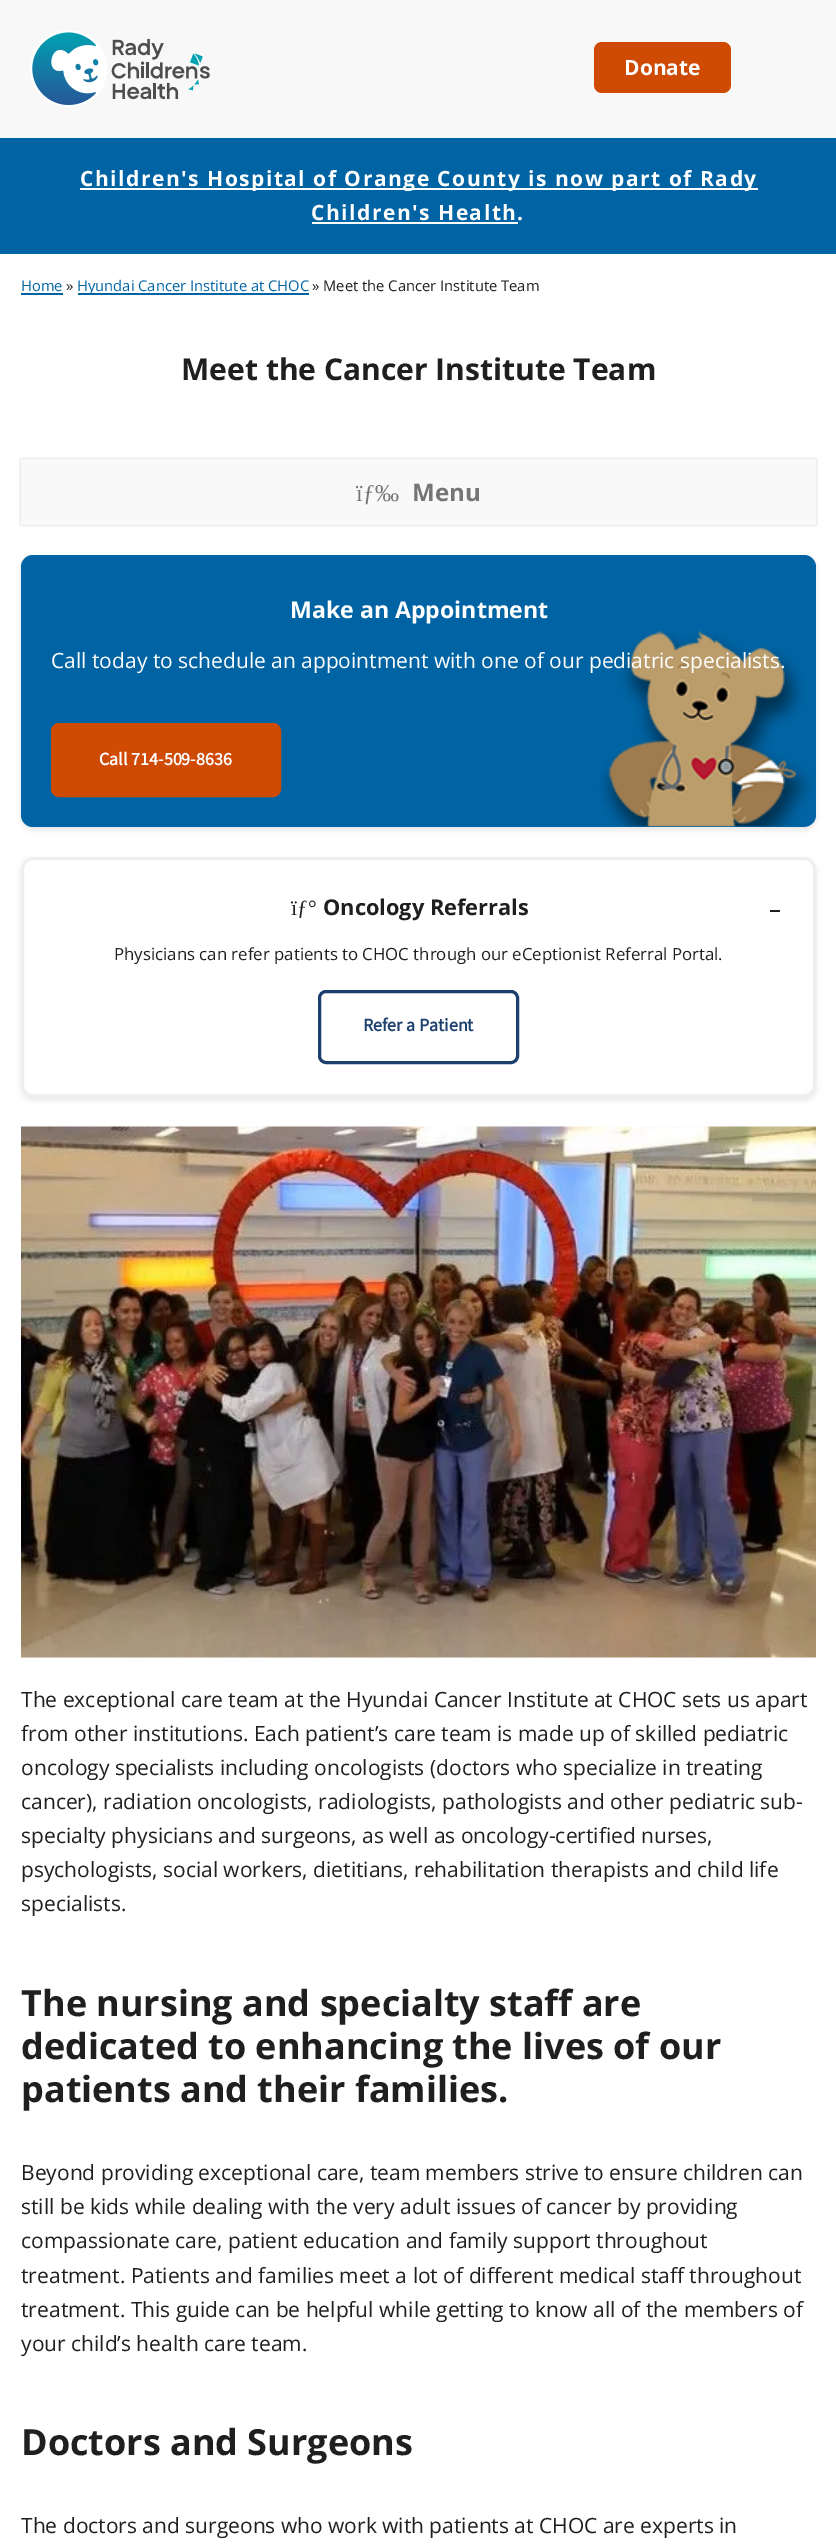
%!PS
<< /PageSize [836 2544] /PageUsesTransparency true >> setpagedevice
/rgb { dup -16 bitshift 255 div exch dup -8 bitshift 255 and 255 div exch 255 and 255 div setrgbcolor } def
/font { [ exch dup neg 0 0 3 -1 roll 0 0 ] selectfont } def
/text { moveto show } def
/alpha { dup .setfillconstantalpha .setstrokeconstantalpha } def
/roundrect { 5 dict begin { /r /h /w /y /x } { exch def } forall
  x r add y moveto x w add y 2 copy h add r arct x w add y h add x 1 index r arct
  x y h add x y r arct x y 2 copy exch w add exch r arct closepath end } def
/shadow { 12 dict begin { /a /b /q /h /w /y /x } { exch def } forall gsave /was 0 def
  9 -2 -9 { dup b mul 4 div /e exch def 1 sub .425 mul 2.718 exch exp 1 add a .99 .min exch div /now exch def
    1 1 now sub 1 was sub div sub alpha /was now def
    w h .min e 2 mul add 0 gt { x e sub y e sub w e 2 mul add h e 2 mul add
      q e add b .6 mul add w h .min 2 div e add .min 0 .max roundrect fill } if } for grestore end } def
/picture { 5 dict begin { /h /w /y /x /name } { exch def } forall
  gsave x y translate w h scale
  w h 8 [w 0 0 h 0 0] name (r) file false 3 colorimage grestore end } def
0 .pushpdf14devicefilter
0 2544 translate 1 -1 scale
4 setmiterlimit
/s1 { /OpenSans-Bold 21 font 16#FFFFFF rgb } def
/s2 { /OpenSans-Regular 14.75 font 16#0064A4 rgb } def
/s3 { /OpenSans-Regular 14.75 font 16#1F1F1F rgb } def
/s4 { /OpenSans-Bold 30 font 16#1F1F1F rgb } def
/s5 { /LiberationSerif-Regular 24 font 16#757575 rgb } def
/s6 { /OpenSans-Bold 24 font 16#757575 rgb } def
/s7 { /OpenSans-Bold 23.1 font 16#FFFFFF rgb } def
/s8 { /OpenSans-Regular 21 font 16#FFFFFF rgb } def
/s9 { /SourceSansPro-Bold 18 font 16#FFFFFF rgb } def
/s10 { /LiberationSerif-Regular 21.75 font 16#1F1F1F rgb } def
/s11 { /OpenSans-Bold 21.75 font 16#1F1F1F rgb } def
/s12 { /OpenSans-Regular 16.8 font 16#1F1F1F rgb } def
/s13 { /SourceSansPro-Bold 18 font 16#1C3F6D rgb } def
/s14 { /OpenSans-Regular 21 font 16#1F1F1F rgb } def
/s15 { /OpenSans-Bold 36 font 16#1F1F1F rgb } def
16#FFFFFF rgb
0 0 836 2544 rectfill
16#F8F8F8 rgb
0 0 836 138 rectfill
(pic1.raw) 30 30 180 77 picture
16#CF4A03 rgb
594 42 137 51 8 roundrect fill
s1
(Donate) 624 75 text
16#0064A4 rgb
0 138 836 116 rectfill
16#FFFFFF rgb
80 188 678 2 rectfill
80 186 moveto 1.5 0 (Children's Hospital of Orange County is now part of Rady) ashow
311 220 moveto 1.5 0 (Children's Health.) ashow
312 222 206 2 rectfill
s2
(Home) 21 291 text
21 293 42 2 rectfill
s3
(») 66 291 text
16#0064A4 rgb
78 293 231 2 rectfill
(Hyundai Cancer Institute at CHOC) 77 291 text
s3
(» Meet the Cancer Institute Team) 312 291 text
s4
(Meet the Cancer Institute Team) 181 380 text
16#000000 rgb
21 459 795 66 0 1.5 0.17 shadow
16#F9F9F9 rgb
21 459 795 66 rectfill
s5
(ïƒ‰) 356 501 text
s6
(Menu) 412 501 text
16#000000 rgb
21 558 795 272 12 3 0.1 shadow
16#0064A4 rgb
21 555 795 272 12 roundrect fill
(pic2.raw) 599 631 214 196 picture
s7
(Make an Appointment) 290 618 text
s8
(Call today to schedule an appointment with one of our pediatric specialists.) 51 668 text
16#CF4A03 rgb
52.5 724.5 227 71 6.5 roundrect gsave fill grestore
3 setlinewidth
stroke
s9
(Call 714-509-8636) 99 765 text
gsave
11 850 moveto 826 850 lineto 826 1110 lineto 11 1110 lineto closepath 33 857 moveto 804 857 lineto 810.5 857 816 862.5 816 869 curveto 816 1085 lineto 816 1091.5 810.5 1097 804 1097 curveto 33 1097 lineto 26.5 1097 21 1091.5 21 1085 curveto 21 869 lineto 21 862.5 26.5 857 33 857 curveto closepath eoclip newpath
16#000000 rgb
21 860 795 240 12 3 0.1 shadow
grestore
16#EFEFEF rgb
22.5 858.5 792 237 10.5 roundrect stroke
s10
(ïƒ°) 291 915 text
s11
(Oncology Referrals) 323 915 text
770 910 10 2 rectfill
s12
(Physicians can refer patients to CHOC through our eCeptionist Referral Portal.) 114 960 text
16#1C3F6D rgb
319.5 991.5 198 71 6.5 roundrect stroke
s13
(Refer a Patient) 363 1031 text
(pic3.raw) 21 1126 795 532 picture
s14
(The exceptional care team at the Hyundai Cancer Institute at CHOC sets us apart) 21 1707 text
(from other institutions. Each patient’s care team is made up of skilled pediatric) 21 1741 text
(oncology specialists including oncologists \(doctors who specialize in treating) 21 1775 text
(cancer\), radiation oncologists, radiologists, pathologists and other pediatric sub-) 21 1809 text
(specialty physicians and surgeons, as well as oncology-certified nurses,) 21 1843 text
(psychologists, social workers, dietitians, rehabilitation therapists and child life) 21 1877 text
(specialists.) 21 1911 text
s15
(The nursing and specialty staff are) 21 2016 text
(dedicated to enhancing the lives of our) 21 2059 text
(patients and their families.) 21 2102 text
s14
(Beyond providing exceptional care, team members strive to ensure children can) 21 2180 text
(still be kids while dealing with the very adult issues of cancer by providing) 21 2214 text
(compassionate care, patient education and family support throughout) 21 2248 text
(treatment. Patients and families meet a lot of different medical staff throughout) 21 2283 text
(treatment. This guide can be helpful while getting to know all of the members of) 21 2317 text
(your child’s health care team.) 21 2351 text
s15
(Doctors and Surgeons) 21 2455 text
s14
(The doctors and surgeons who work with patients at CHOC are experts in) 21 2533 text
.poppdf14devicefilter showpage
